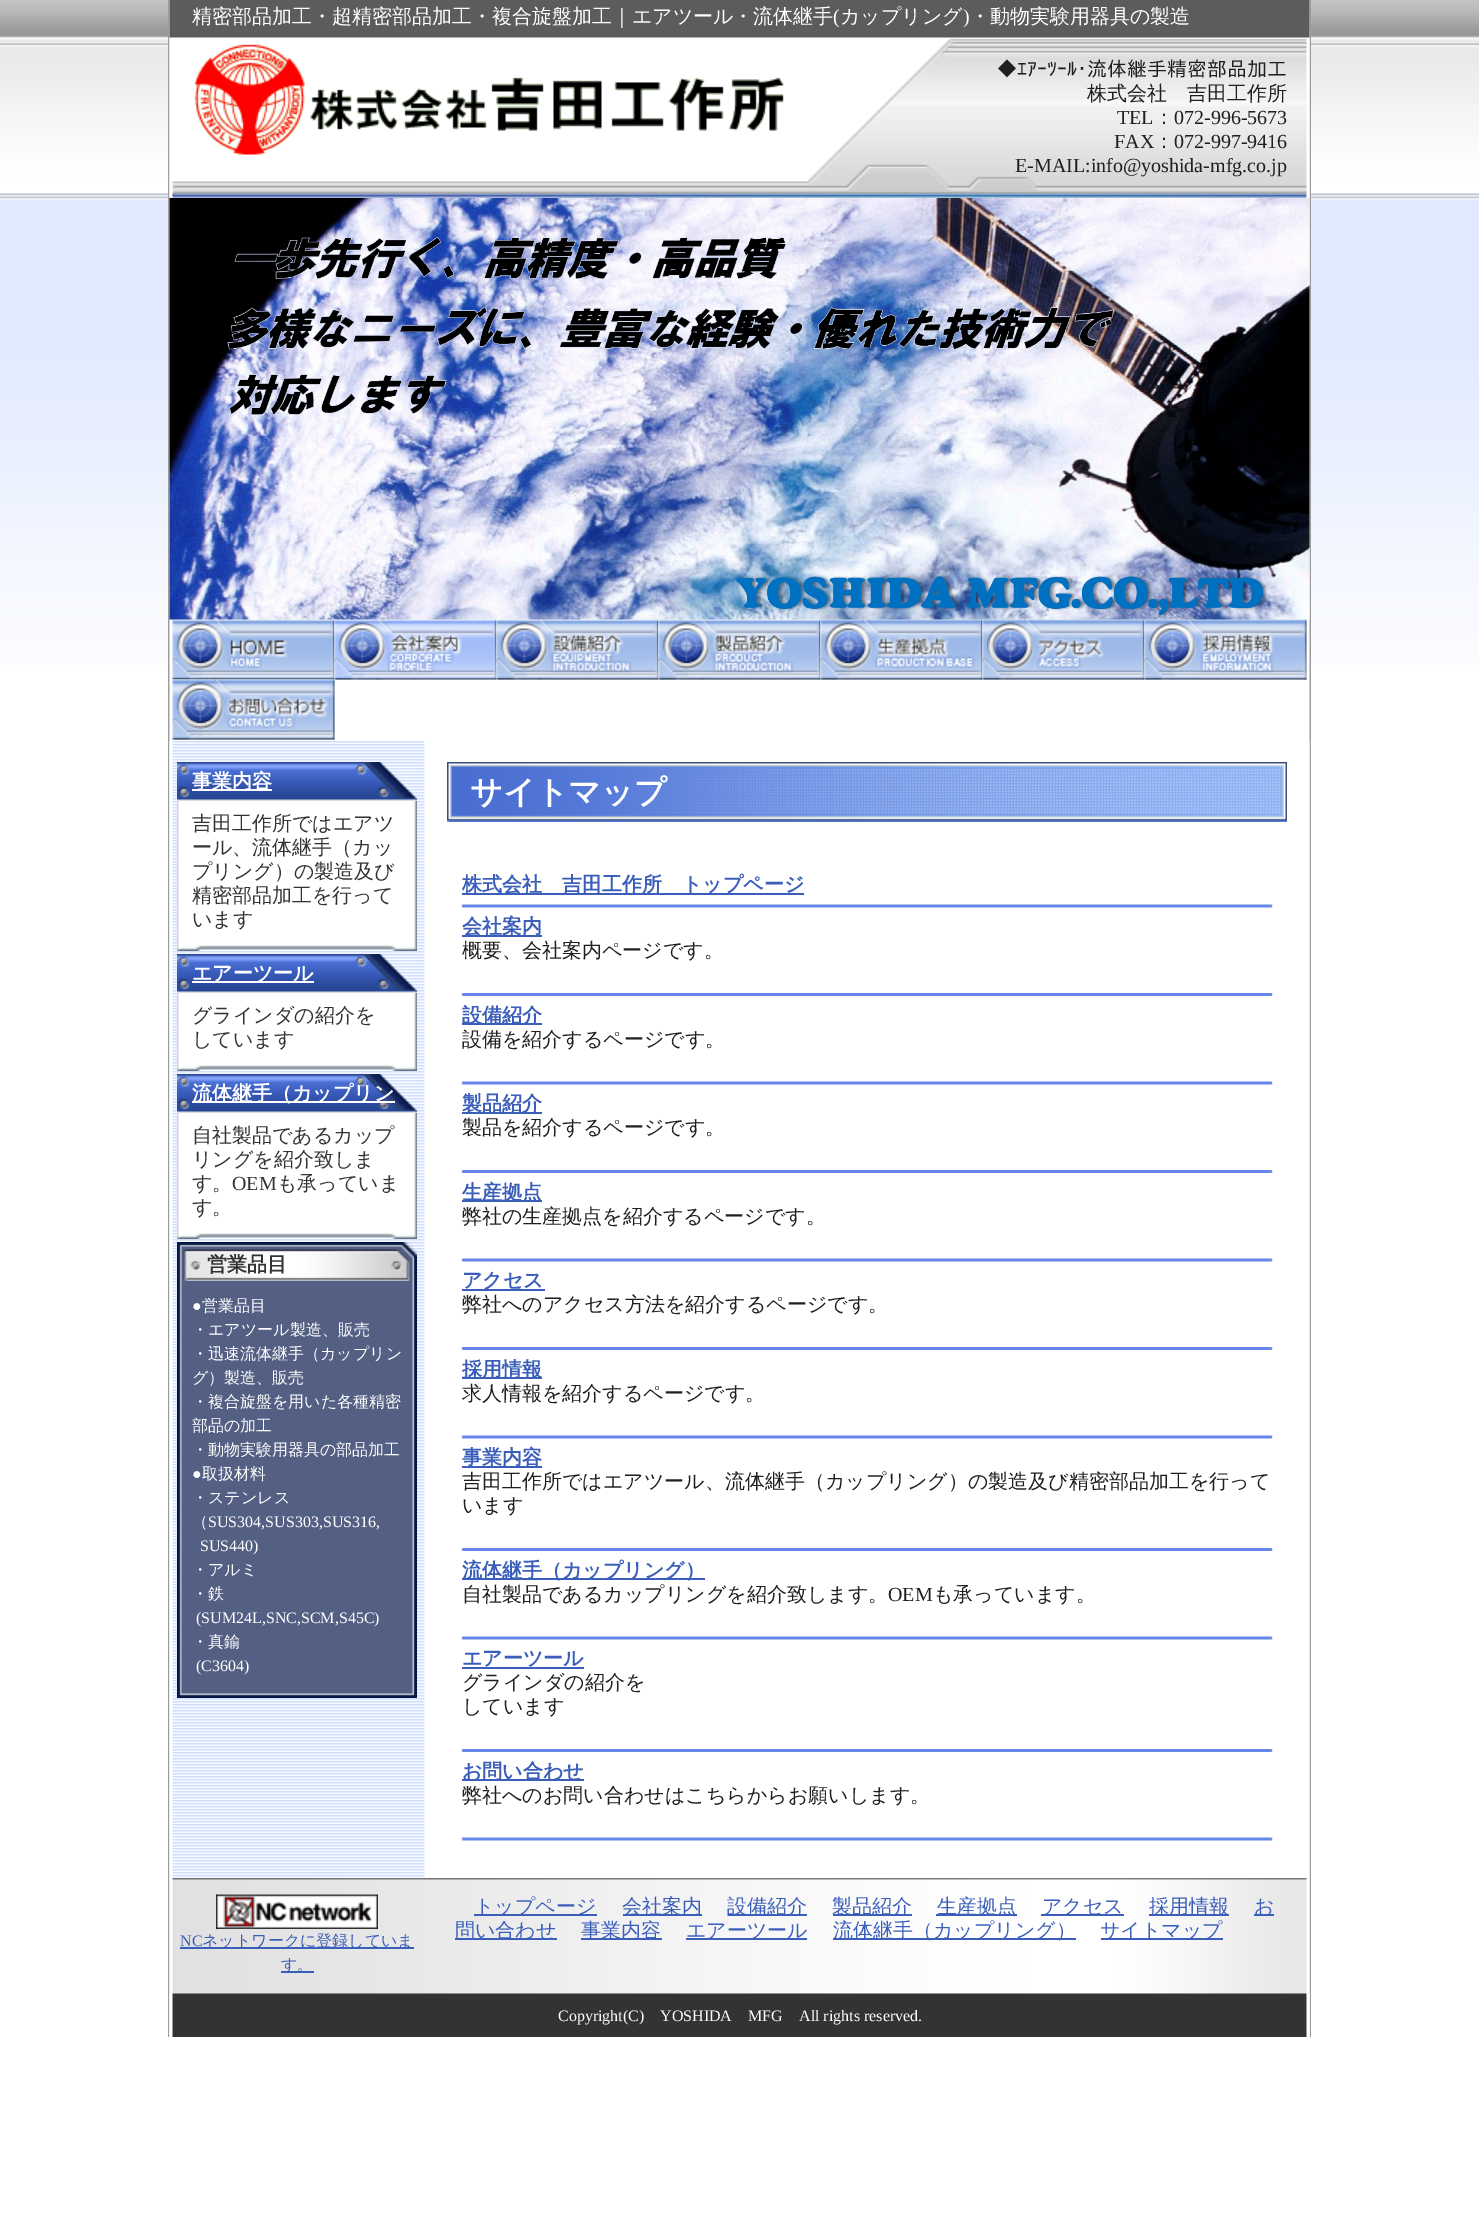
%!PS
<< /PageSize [1479 2228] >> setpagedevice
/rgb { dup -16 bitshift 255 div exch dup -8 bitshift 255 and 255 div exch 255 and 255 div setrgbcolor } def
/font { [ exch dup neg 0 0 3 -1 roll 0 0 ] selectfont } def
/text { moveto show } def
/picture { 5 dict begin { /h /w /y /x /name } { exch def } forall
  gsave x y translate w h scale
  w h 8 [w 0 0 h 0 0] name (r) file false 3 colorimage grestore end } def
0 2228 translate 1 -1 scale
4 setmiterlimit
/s1 { /WenQuanYiZenHei-Medium 20 font 16#FFFFFF rgb } def
/s2 { /LiberationSerif-Regular 20 font 16#FFFFFF rgb } def
/s3 { /IPAPGothic-Regular 20 font 16#1F1F1F rgb } def
/s4 { /WenQuanYiZenHei-Medium 20 font 16#1F1F1F rgb } def
/s5 { /LiberationSerif-Regular 20 font 16#1F1F1F rgb } def
/s6 { /WenQuanYiZenHei-Bold 20 font 16#FFFFFF rgb } def
/s7 { /WenQuanYiZenHei-Medium 20 font 16#333333 rgb } def
/s8 { /LiberationSerif-Regular 20 font 16#333333 rgb } def
/s9 { /WenQuanYiZenHei-Bold 20 font 16#333333 rgb } def
/s10 { /LiberationSerif-Regular 16 font 16#FFFFFF rgb } def
/s11 { /WenQuanYiZenHei-Medium 16 font 16#FFFFFF rgb } def
/s12 { /WenQuanYiZenHei-Bold 32 font 16#FFFFFF rgb } def
/s13 { /WenQuanYiZenHei-Bold 20 font 16#3A5EBA rgb } def
/s14 { /WenQuanYiZenHei-Medium 20 font 16#3A5EBA rgb } def
/s15 { /LiberationSerif-Regular 16 font 16#3A5EBA rgb } def
/s16 { /WenQuanYiZenHei-Medium 16 font 16#3A5EBA rgb } def
16#FFFFFF rgb
0 0 1479 2228 rectfill
(pic1.raw) 0 0 1479 665 picture
(pic2.raw) 168 0 1143 2037 picture
(pic3.raw) 169 0 1141 198 picture
s1
(精密部品加工・超精密部品加工・複合旋盤加工｜エアツール・流体継手) 192 23 text
s2
(\() 833 23 text
s1
(カップリング) 840 23 text
s2
(\)) 963 23 text
s1
(・動物実験用器具の製造) 970 23 text
(pic4.raw) 194 44 590 111 picture
s3
(◆ｴｱｰﾂｰﾙ・流体継手精密部品加工) 997 76 text
s4
(株式会社　吉田工作所) 1087 100 text
s5
(TEL) 1117 124 text
s4
(：) 1154 124 text
s5
(072-996-5673) 1174 124 text
(FAX) 1114 148 text
s4
(：) 1154 148 text
s5
(072-997-9416) 1174 148 text
(E-MAIL:info@yoshida-mfg.co.jp) 1015 172 text
(pic6.raw) 172 619 163 61 picture
(pic7.raw) 172 619 163 61 picture
(pic8.raw) 334 619 163 61 picture
(pic9.raw) 334 619 163 61 picture
(pic10.raw) 496 619 163 61 picture
(pic11.raw) 496 619 163 61 picture
(pic12.raw) 658 619 163 61 picture
(pic13.raw) 658 619 163 61 picture
(pic14.raw) 820 619 163 61 picture
(pic15.raw) 820 619 163 61 picture
(pic16.raw) 982 619 163 61 picture
(pic17.raw) 982 619 163 61 picture
(pic18.raw) 1144 619 163 61 picture
(pic19.raw) 1144 619 163 61 picture
(pic5.raw) 169 198 1141 422 picture
(pic20.raw) 172 679 163 61 picture
(pic21.raw) 172 679 163 61 picture
(pic22.raw) 169 741 1141 1137 picture
(pic23.raw) 177 801 240 144 picture
(pic24.raw) 177 762 240 39 picture
16#FFFFFF rgb
192 789 80 2 rectfill
s6
(事業内容) 192 788 text
s7
(吉田工作所ではエアツ) 192 830 text
(ール、流体継手（カッ) 192 854 text
(プリング）の製造及び) 192 878 text
(精密部品加工を行って) 192 902 text
(います) 192 926 text
(pic25.raw) 177 945 240 6 picture
(pic26.raw) 177 993 240 72 picture
(pic24.raw) 177 954 240 39 picture
16#FFFFFF rgb
192 981 122 2 rectfill
s6
(エアーツール) 192 980 text
s7
(グラインダの紹介を) 192 1022 text
(しています) 192 1046 text
(pic25.raw) 177 1065 240 6 picture
(pic27.raw) 177 1113 240 120 picture
(pic24.raw) 177 1074 240 39 picture
16#FFFFFF rgb
192 1101 203 2 rectfill
s6
(流体継手（カップリン) 192 1100 text
s7
(自社製品であるカップ) 192 1142 text
(リングを紹介致しま) 192 1166 text
(す。) 192 1190 text
s8
(OEM) 232 1190 text
s7
(も承っていま) 277 1190 text
(す。) 192 1214 text
(pic25.raw) 177 1233 240 6 picture
(pic28.raw) 177 1242 240 456 picture
(pic29.raw) 179 1242 238 39 picture
s9
(営業品目) 207 1271 text
s10
(●) 192 1311 text
s11
(営業品目) 202 1311 text
(・エアツール製造、販売) 192 1335 text
(・迅速流体継手（カップリン) 192 1359 text
(グ）製造、販売) 192 1383 text
(・複合旋盤を用いた各種精密) 192 1407 text
(部品の加工) 192 1431 text
(・動物実験用器具の部品加工) 192 1455 text
s10
(●) 192 1479 text
s11
(取扱材料) 202 1479 text
(・ステンレス) 192 1503 text
(（) 192 1527 text
s10
(SUS304,SUS303,SUS316,) 208 1527 text
(SUS440\)) 200 1551 text
s11
(・アルミ) 192 1575 text
(・鉄) 192 1599 text
s10
(\(SUM24L,SNC,SCM,S45C\)) 196 1623 text
s11
(・真鍮) 192 1647 text
s10
(\(C3604\)) 196 1671 text
(pic30.raw) 179 1693 236 5 picture
(pic31.raw) 447 762 840 60 picture
s12
(サイトマップ) 470 803 text
16#3A5EBA rgb
462 893 342 2 rectfill
s13
(株式会社　吉田工作所　トップページ) 462 891 text
(pic32.raw) 461 904 812 4 picture
462 935 80 2 rectfill
(会社案内) 462 933 text
s4
(概要、会社案内ページです。) 462 957 text
(pic33.raw) 461 993 812 3 picture
16#3A5EBA rgb
462 1023 80 2 rectfill
s13
(設備紹介) 462 1022 text
s4
(設備を紹介するページです。) 462 1046 text
(pic32.raw) 461 1081 812 4 picture
16#3A5EBA rgb
462 1112 80 2 rectfill
s13
(製品紹介) 462 1110 text
s4
(製品を紹介するページです。) 462 1134 text
(pic33.raw) 461 1170 812 3 picture
16#3A5EBA rgb
462 1200 80 2 rectfill
s13
(生産拠点) 462 1199 text
s4
(弊社の生産拠点を紹介するページです。) 462 1223 text
(pic32.raw) 461 1258 812 4 picture
16#3A5EBA rgb
462 1289 83 2 rectfill
s13
(アクセス) 462 1287 text
s4
(弊社へのアクセス方法を紹介するページです。) 462 1311 text
(pic33.raw) 461 1347 812 3 picture
16#3A5EBA rgb
462 1377 80 2 rectfill
s13
(採用情報) 462 1376 text
s4
(求人情報を紹介するページです。) 462 1400 text
(pic32.raw) 461 1435 812 4 picture
16#3A5EBA rgb
462 1466 80 2 rectfill
s13
(事業内容) 462 1464 text
s4
(吉田工作所ではエアツール、流体継手（カップリング）の製造及び精密部品加工を行って) 462 1488 text
(います) 462 1512 text
(pic33.raw) 461 1548 812 3 picture
16#3A5EBA rgb
462 1578 243 2 rectfill
s13
(流体継手（カップリング）) 462 1577 text
s4
(自社製品であるカップリングを紹介致します。) 462 1601 text
s5
(OEM) 888 1601 text
s4
(も承っています。) 933 1601 text
(pic32.raw) 461 1636 812 4 picture
s13
(エアーツール) 462 1665 text
462 1667 122 2 rectfill
s4
(グラインダの紹介を) 462 1689 text
(しています) 462 1713 text
(pic33.raw) 461 1749 812 3 picture
16#3A5EBA rgb
462 1779 122 2 rectfill
s13
(お問い合わせ) 462 1778 text
s4
(弊社へのお問い合わせはこちらからお願いします。) 462 1802 text
(pic32.raw) 461 1837 812 4 picture
(pic34.raw) 169 1878 1141 159 picture
(pic35.raw) 169 1878 1141 2 picture
16#3A5EBA rgb
474 1914 123 2 rectfill
(トップページ) 474 1913 text
623 1914 79 2 rectfill
(会社案内) 622 1913 text
728 1914 79 2 rectfill
(設備紹介) 727 1913 text
833 1914 79 2 rectfill
(製品紹介) 832 1913 text
936 1914 81 2 rectfill
(生産拠点) 937 1913 text
1041 1914 83 2 rectfill
(アクセス) 1042 1913 text
1149 1914 80 2 rectfill
(採用情報) 1149 1913 text
1254 1914 20 2 rectfill
(お) 1254 1913 text
455 1938 102 2 rectfill
(問い合わせ) 455 1937 text
581 1938 81 2 rectfill
(事業内容) 581 1937 text
686 1938 121 2 rectfill
(エアーツール) 686 1937 text
833 1938 243 2 rectfill
(流体継手（カップリング）) 833 1937 text
1101 1938 122 2 rectfill
(サイトマップ) 1100 1937 text
(pic36.raw) 216 1894 162 35 picture
s15
(NC) 180 1946 text
180 1947 234 2 rectfill
s16
(ネットワークに登録していま) 202 1946 text
281 1971 33 2 rectfill
(す。) 281 1970 text
(pic37.raw) 169 1993 1141 44 picture
s10
(Copyright\(C\)) 558 2021 text
(YOSHIDA) 660 2021 text
(MFG) 748 2021 text
(All rights reserved.) 799 2021 text
showpage
